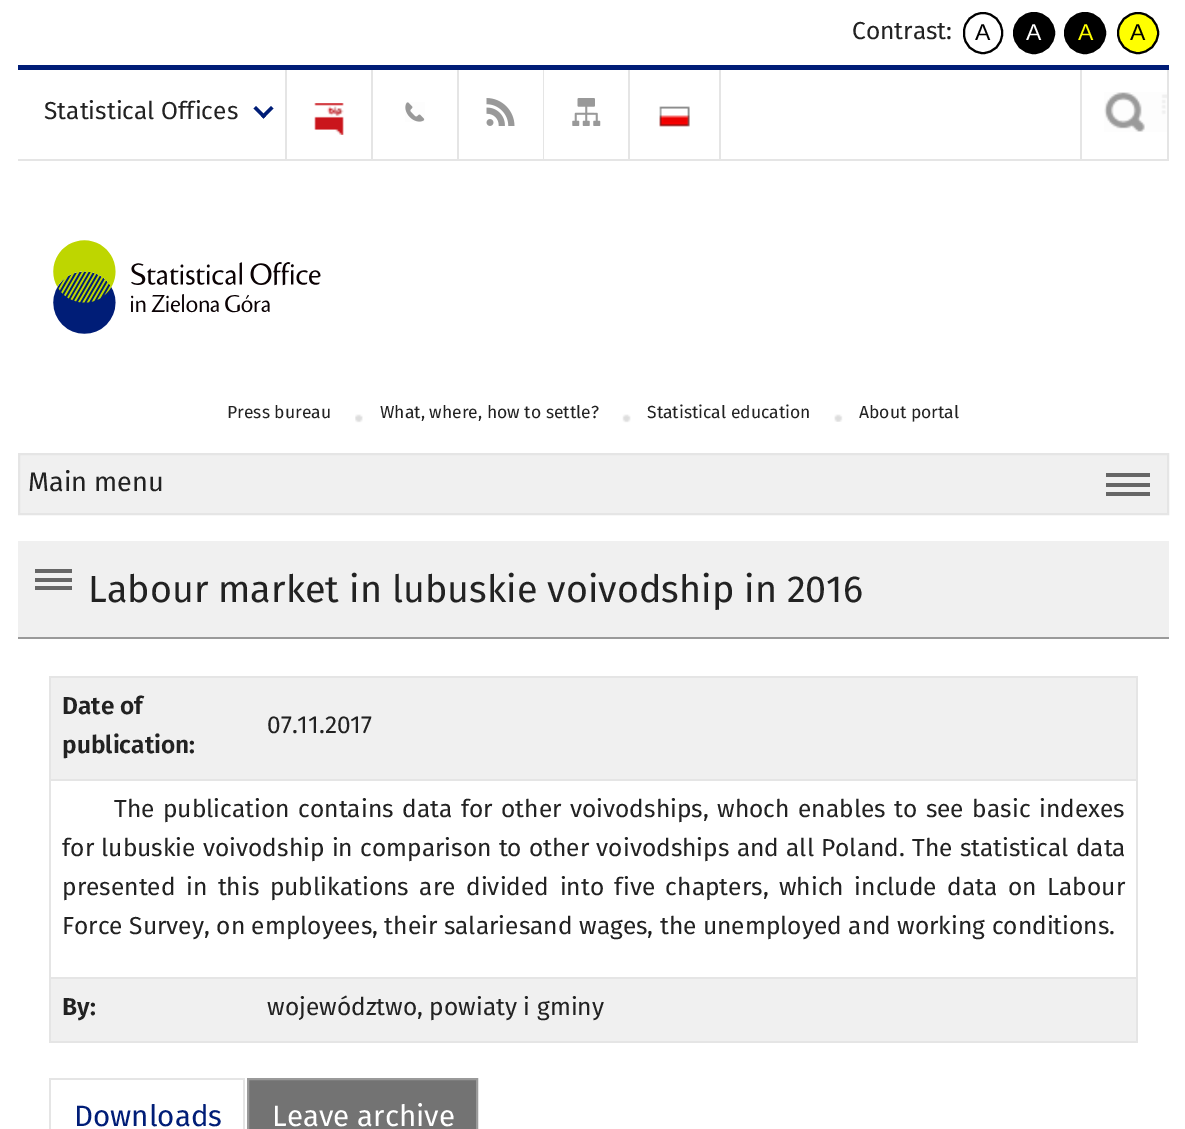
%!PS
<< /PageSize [1185 1129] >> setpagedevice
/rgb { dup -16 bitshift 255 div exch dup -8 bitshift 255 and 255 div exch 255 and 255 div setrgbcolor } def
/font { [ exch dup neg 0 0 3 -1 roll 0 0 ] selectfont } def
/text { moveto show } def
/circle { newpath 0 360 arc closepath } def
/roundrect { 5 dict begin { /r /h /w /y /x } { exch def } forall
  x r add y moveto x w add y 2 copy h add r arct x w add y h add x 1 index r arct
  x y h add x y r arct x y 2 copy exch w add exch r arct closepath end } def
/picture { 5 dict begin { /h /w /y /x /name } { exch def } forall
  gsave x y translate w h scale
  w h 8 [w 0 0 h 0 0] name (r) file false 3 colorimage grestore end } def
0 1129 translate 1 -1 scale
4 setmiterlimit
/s1 { /FiraSans-Regular 24.5 font 16#222222 rgb } def
/s2 { /LiberationSans-Regular 23 font 16#000000 rgb } def
/s3 { /LiberationSans-Regular 23 font 16#FFFFFF rgb } def
/s4 { /LiberationSans-Regular 23 font 16#FFFF00 rgb } def
/s5 { /FiraSans-Regular 17.5 font 16#222222 rgb } def
/s6 { /FiraSans-Regular 27 font 16#222222 rgb } def
/s7 { /FiraSans-Regular 37.7 font 16#222222 rgb } def
/s8 { /FiraSans-SemiBold 24.5 font 16#222222 rgb } def
/s9 { /FiraSans-Regular 29.5 font 16#001D77 rgb } def
/s10 { /FiraSans-Regular 29.5 font 16#FFFFFF rgb } def
16#FFFFFF rgb
0 0 1185 1129 rectfill
s1
(Contrast:) 852 39 text
16#000000 rgb
2 setlinewidth
964 13 38 40 19 roundrect stroke
s2
(A) 975 40 text
1034 33 20 circle gsave fill grestore
stroke
s3
(A) 1026 40 text
16#000000 rgb
1085 33 20 circle gsave fill grestore
stroke
s4
(A) 1078 40 text
1138 33 20 circle gsave fill grestore
16#000000 rgb
stroke
(A) 1130 40 text
16#001D77 rgb
18 65 1151 5 rectfill
16#E5E5E5 rgb
18 159 1151 2 rectfill
285 70 2 89 rectfill
s1
(Statistical Offices) 44 119 text
16#001D77 rgb
271 106 moveto 273.5 108.5 lineto 263.5 118.5 lineto 261 116 lineto closepath fill
256 106 moveto 266 116 lineto 263.5 118.5 lineto 253.5 108.5 lineto closepath fill
16#E5E5E5 rgb
371 70 2 89 rectfill
(pic1.raw) 314 103 30 32 picture
457 70 2 89 rectfill
(pic2.raw) 405 102 20 20 picture
543 70 1 89 rectfill
(pic3.raw) 486 98 29 28 picture
628 70 2 89 rectfill
(pic4.raw) 572 98 29 28 picture
719 70 2 89 rectfill
(pic5.raw) 659 106 31 21 picture
(pic6.raw) 1104 92 63 40 picture
1167 70 2 89 rectfill
1080 70 2 89 rectfill
(pic7.raw) 53 240 268 94 picture
s5
(Press bureau) 227 418 text
(pic8.raw) 355 414 8 9 picture
(What, where, how to settle?) 380 418 text
(pic9.raw) 622 414 9 9 picture
(Statistical education) 647 418 text
(pic10.raw) 834 414 9 8 picture
(About portal) 859 418 text
16#F0F0F0 rgb
19 454 moveto 1168 454 lineto 1168 514 lineto 19 514 lineto closepath gsave fill grestore
16#E5E5E5 rgb
stroke
s6
(Main menu) 28 491 text
16#666666 rgb
1106 492 44 4 rectfill
1106 483 44 4 rectfill
1106 473 44 4 rectfill
16#F0F0F0 rgb
18 541 1151 96 rectfill
16#9A9A9A rgb
18 637 1151 2 rectfill
16#666666 rgb
35 586 37 4 rectfill
35 578 37 4 rectfill
35 569 37 4 rectfill
s7
(Labour market in lubuskie voivodship in 2016) 88 602 text
16#F0F0F0 rgb
51 678 1085 101 rectfill
16#E5E5E5 rgb
49 676 1089 2 rectfill
49 779 1089 2 rectfill
49 977 1089 2 rectfill
1136 977 2 66 rectfill
49 1041 1089 2 rectfill
49 977 2 66 rectfill
49 779 2 199 rectfill
49 676 2 105 rectfill
s8
(Date of) 62 714 text
(publication:) 62 753 text
16#E5E5E5 rgb
1136 779 2 199 rectfill
1136 676 2 105 rectfill
s1
(07.11.2017) 267 733 text
114 817 moveto 2 0 32 (The publication contains data for other voivodships, whoch enables to see basic indexes) widthshow
62 856 moveto 0.7 0 32 (for lubuskie voivodship in comparison to other voivodships and all Poland. The statistical data) widthshow
62 895 moveto 4 0 32 (presented in this publikations are divided into five chapters, which include data on Labour) widthshow
(Force Survey, on employees, their salariesand wages, the unemployed and working conditions.) 62 934 text
16#F0F0F0 rgb
51 979 1085 62 rectfill
s8
(By:) 62 1015 text
s1
(województwo, powiaty i gminy) 267 1015 text
16#E5E5E5 rgb
49 1078 196 2 rectfill
243 1078 2 51 rectfill
49 1078 2 51 rectfill
s9
(Downloads) 74 1126 text
16#737373 rgb
248 1079 moveto 477 1079 lineto 477 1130 lineto 248 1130 lineto closepath gsave fill grestore
16#9A9A9A rgb
stroke
s10
(Leave archive) 272 1126 text
showpage
